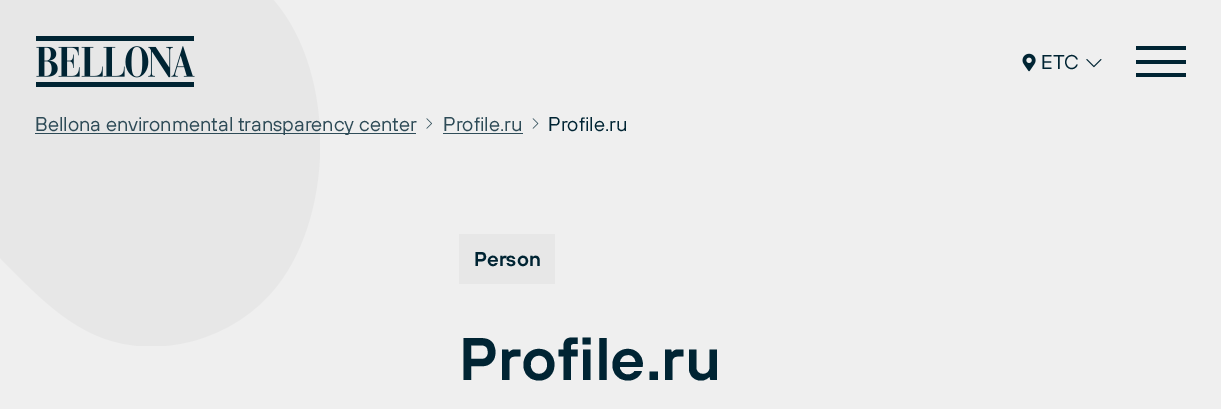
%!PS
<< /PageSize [1221 409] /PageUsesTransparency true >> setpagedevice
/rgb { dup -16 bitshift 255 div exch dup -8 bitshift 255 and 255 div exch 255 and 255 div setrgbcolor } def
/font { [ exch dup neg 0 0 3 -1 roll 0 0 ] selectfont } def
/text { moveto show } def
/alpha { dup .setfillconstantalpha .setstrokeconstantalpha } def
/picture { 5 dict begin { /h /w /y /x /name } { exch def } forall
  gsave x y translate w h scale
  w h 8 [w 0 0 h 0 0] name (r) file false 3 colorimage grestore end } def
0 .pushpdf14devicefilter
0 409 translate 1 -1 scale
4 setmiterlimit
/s1 { /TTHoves-Regular 20 font 16#002433 rgb } def
/s2 { /TTHoves-Regular 20 font 16#2E4B57 rgb } def
/s3 { /TTHoves-SemiBold 20 font 16#002433 rgb } def
/s4 { /TTHoves-SemiBold 60 font 16#002433 rgb } def
16#EFEFEF rgb
0 0 1221 409 rectfill
gsave
0 0 320 346 rectclip
16#E7E7E7 rgb
268 -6 moveto 336 64 336 211 277 286 curveto 256 313 226 332 193 341 curveto 163 349 130 349 100 337 curveto 60 321 30 288 0 258 curveto 0 -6 lineto closepath eofill
grestore
(pic1.raw) 36 36 159 51 picture
(pic2.raw) 1022 53 14 19 picture
s1
(ETC) 1041 69 text
(pic3.raw) 1086 59 16 9 picture
1136 46 50 4 rectfill
1136 60 50 4 rectfill
1136 73 50 4 rectfill
0.8 alpha
35 133 381 1 rectfill
1 alpha
s2
(Bellona environmental transparency center) 35 131 text
(pic4.raw) 426 118 6 11 picture
(Profile.ru) 443 131 text
16#304D59 rgb
443 133 80 1 rectfill
(pic5.raw) 532 118 7 11 picture
s1
(Profile.ru) 548 131 text
16#E7E7E7 rgb
459 234 96 50 rectfill
s3
(Person) 474 266 text
s4
(Profile.ru) 459 380 text
.poppdf14devicefilter showpage
